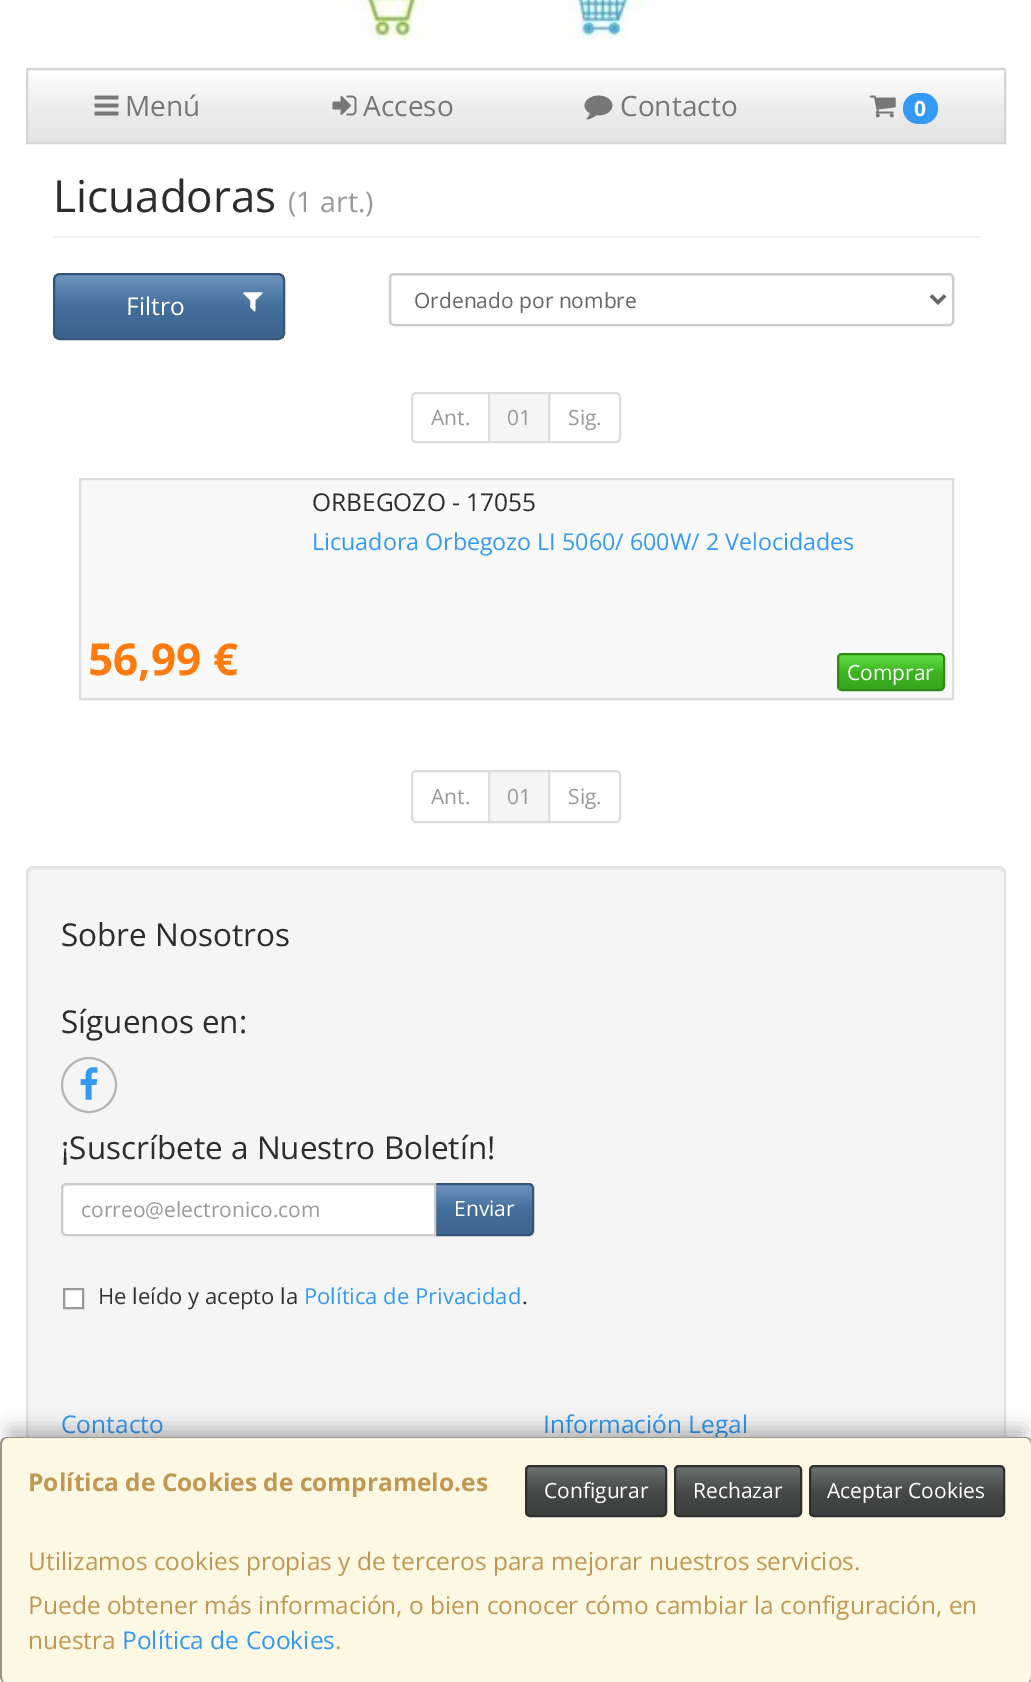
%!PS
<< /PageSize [1031 1682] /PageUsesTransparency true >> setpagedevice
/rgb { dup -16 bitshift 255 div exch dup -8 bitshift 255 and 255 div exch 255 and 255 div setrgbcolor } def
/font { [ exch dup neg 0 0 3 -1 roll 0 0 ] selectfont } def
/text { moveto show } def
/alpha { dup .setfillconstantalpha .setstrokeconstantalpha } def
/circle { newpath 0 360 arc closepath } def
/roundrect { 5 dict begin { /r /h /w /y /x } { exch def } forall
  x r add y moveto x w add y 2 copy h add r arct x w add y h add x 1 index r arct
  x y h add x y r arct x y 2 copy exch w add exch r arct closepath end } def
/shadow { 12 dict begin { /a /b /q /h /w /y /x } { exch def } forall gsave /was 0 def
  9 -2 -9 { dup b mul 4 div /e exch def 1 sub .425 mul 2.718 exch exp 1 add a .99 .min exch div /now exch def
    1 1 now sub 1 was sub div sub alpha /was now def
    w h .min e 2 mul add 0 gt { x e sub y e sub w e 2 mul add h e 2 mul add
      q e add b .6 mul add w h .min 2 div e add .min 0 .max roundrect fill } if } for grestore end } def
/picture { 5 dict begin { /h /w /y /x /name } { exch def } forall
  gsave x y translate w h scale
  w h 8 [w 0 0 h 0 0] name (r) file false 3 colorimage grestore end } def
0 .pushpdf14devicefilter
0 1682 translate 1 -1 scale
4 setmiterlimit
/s1 { /OpenSans-Regular 28 font 16#777777 rgb } def
/s2 { /OpenSans-Bold 21 font 16#FFFFFF rgb } def
/s3 { /OpenSans-Regular 44 font 16#2D2D2D rgb } def
/s4 { /OpenSans-Regular 28.5 font 16#999999 rgb } def
/s5 { /OpenSans-Regular 24.5 font 16#FFFFFF rgb } def
/s6 { /OpenSans-Regular 21 font 16#666666 rgb } def
/s7 { /OpenSans-Regular 21 font 16#999999 rgb } def
/s8 { /OpenSans-Regular 24.5 font 16#2D2D2D rgb } def
/s9 { /OpenSans-Regular 23.25 font 16#3399F3 rgb } def
/s10 { /OpenSans-Bold 44 font 16#FF7B0D rgb } def
/s11 { /OpenSans-Regular 21 font 16#FFFFFF rgb } def
/s12 { /OpenSans-Regular 31.5 font 16#2D2D2D rgb } def
/s13 { /OpenSans-Regular 22 font 16#333333 rgb } def
/s14 { /OpenSans-Regular 22 font 16#3399F3 rgb } def
/s15 { /OpenSans-Regular 24.5 font 16#3399F3 rgb } def
/s16 { /OpenSans-Bold 24.5 font 16#C09853 rgb } def
/s17 { /OpenSans-Regular 24.5 font 16#C09853 rgb } def
16#FFFFFF rgb
0 0 1031 1682 rectfill
(pic1.raw) 344 0 307 41 picture
gsave 28 75 moveto 1004 75 lineto 1004 142 lineto 28 142 lineto closepath clip newpath
<< /ShadingType 2 /ColorSpace /DeviceRGB /Coords [516 70 516 142] /Extend [true true] /Function << /FunctionType 3 /Domain [0 1] /Functions [<< /FunctionType 2 /Domain [0 1] /C0 [1 1 1] /C1 [0.933 0.933 0.933] /N 1 >> << /FunctionType 2 /Domain [0 1] /C0 [0.933 0.933 0.933] /C1 [0.894 0.894 0.894] /N 1 >>] /Bounds [0.5] /Encode [0 1 0 1] >> >> shfill grestore
16#D5D5D5 rgb
2 setlinewidth
27 69 978 74 rectstroke
(pic2.raw) 94 95 25 21 picture
s1
(Menú) 125 116 text
(pic3.raw) 332 95 25 21 picture
(Acceso) 363 116 text
(pic4.raw) 584 95 29 25 picture
(Contacto) 620 116 text
(pic5.raw) 869 95 27 23 picture
16#3399F3 rgb
903 93 35 31 15.5 roundrect fill
s2
(0) 914 116 text
16#EEEEEE rgb
53 236 927 2 rectfill
s3
(Licuadoras) 53 212 text
s4
(\(1 art.\)) 288 212 text
gsave
53 273 232 67 7 roundrect clip newpath
gsave 54 275 moveto 284 275 lineto 284 338 lineto 54 338 lineto closepath clip newpath
<< /ShadingType 2 /ColorSpace /DeviceRGB /Coords [169 275 169 338] /Extend [true true] /Function << /FunctionType 3 /Domain [0 1] /Functions [<< /FunctionType 2 /Domain [0 1] /C0 [0.427 0.58 0.749] /C1 [0.267 0.431 0.608] /N 1 >> << /FunctionType 2 /Domain [0 1] /C0 [0.267 0.431 0.608] /C1 [0.243 0.392 0.553] /N 1 >>] /Bounds [0.5] /Encode [0 1 0 1] >> >> shfill grestore
grestore
16#345578 rgb
54 274 230 65 6 roundrect stroke
s5
(Filtro) 126 315 text
(pic6.raw) 243 292 20 20 picture
16#ECECEC rgb
394 276 moveto 948 276 lineto 950 276 952 278 952 280 curveto 952 277 951 275 948 275 curveto 394 275 lineto 391 275 390 277 390 280 curveto 390 278 392 276 394 276 curveto closepath fill
16#CCCCCC rgb
390 274 563 51 4 roundrect stroke
16#666666 rgb
3.5 setlinewidth
931 295.5 moveto 938 302.5 lineto 945 295.5 lineto stroke
s6
(Ordenado por nombre) 414 308 text
16#DDDDDD rgb
2 setlinewidth
416 393 moveto 489 393 lineto 489 442 lineto 416 442 lineto 414 442 412 440 412 438 curveto 412 397 lineto 412 395 414 393 416 393 curveto closepath stroke
s7
(Ant.) 431 425 text
16#DDDDDD rgb
549 393 moveto 616 393 lineto 618 393 620 395 620 397 curveto 620 438 lineto 620 440 618 442 616 442 curveto 549 442 lineto closepath stroke
16#F5F5F5 rgb
489 393 moveto 549 393 lineto 549 442 lineto 489 442 lineto closepath gsave fill grestore
16#DDDDDD rgb
stroke
s7
(01) 507 425 text
(Sig.) 568 425 text
16#F9F9F9 rgb
80 479 moveto 953 479 lineto 953 699 lineto 80 699 lineto closepath gsave fill grestore
16#DDDDDD rgb
stroke
s8
(ORBEGOZO - 17055) 312 511 text
s9
(Licuadora Orbegozo LI 5060/ 600W/ 2 Velocidades) 312 550 text
s10
(56,99 €) 88 675 text
gsave 838 655 moveto 943 655 lineto 943 690 lineto 838 690 lineto closepath clip newpath
<< /ShadingType 2 /ColorSpace /DeviceRGB /Coords [891 655 891 690] /Extend [true true] /Function << /FunctionType 3 /Domain [0 1] /Functions [<< /FunctionType 2 /Domain [0 1] /C0 [0.38 0.867 0.271] /C1 [0.235 0.71 0.129] /N 1 >> << /FunctionType 2 /Domain [0 1] /C0 [0.235 0.71 0.129] /C1 [0.212 0.643 0.118] /N 1 >>] /Bounds [0.5] /Encode [0 1 0 1] >> >> shfill grestore
16#2E8A19 rgb
838 654 106 36 4 roundrect stroke
s11
(Comprar) 847 680 text
16#DDDDDD rgb
416 771 moveto 489 771 lineto 489 822 lineto 416 822 lineto 414 822 412 820 412 818 curveto 412 775 lineto 412 773 414 771 416 771 curveto closepath stroke
s7
(Ant.) 431 804 text
16#DDDDDD rgb
549 771 moveto 616 771 lineto 618 771 620 773 620 775 curveto 620 818 lineto 620 820 618 822 616 822 curveto 549 822 lineto closepath stroke
16#F5F5F5 rgb
489 771 moveto 549 771 lineto 549 822 lineto 489 822 lineto closepath gsave fill grestore
16#DDDDDD rgb
stroke
s7
(01) 507 804 text
(Sig.) 568 804 text
16#F5F5F5 rgb
26 866 980 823 7 roundrect fill
16#E9E9E9 rgb
33 870 moveto 999 870 lineto 1002 870 1004 872 1004 875 curveto 1004 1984 lineto 1004 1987 lineto 1004 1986 1005 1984 1005 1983 curveto 1005 873 lineto 1005 870 1003 868 1000 868 curveto 33 868 lineto 30 868 28 870 28 873 curveto 28 875 lineto 28 872 30 870 33 870 curveto closepath fill
16#E3E3E3 rgb
27 867 978 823 6 roundrect stroke
s12
(Sobre Nosotros) 61 946 text
(Síguenos en:) 61 1033 text
16#B5B5B5 rgb
89 1085 27 circle stroke
(pic7.raw) 80 1067 18 33 picture
s12
(¡Suscríbete a Nuestro Boletín!) 61 1159 text
gsave 436 1185 moveto 532 1185 lineto 532 1234 lineto 436 1234 lineto closepath clip newpath
<< /ShadingType 2 /ColorSpace /DeviceRGB /Coords [484 1185 484 1234] /Extend [true true] /Function << /FunctionType 3 /Domain [0 1] /Functions [<< /FunctionType 2 /Domain [0 1] /C0 [0.427 0.58 0.749] /C1 [0.267 0.431 0.608] /N 1 >> << /FunctionType 2 /Domain [0 1] /C0 [0.267 0.431 0.608] /C1 [0.243 0.392 0.553] /N 1 >>] /Bounds [0.5] /Encode [0 1 0 1] >> >> shfill grestore
16#345578 rgb
435 1184 moveto 529 1184 lineto 531 1184 533 1186 533 1188 curveto 533 1231 lineto 533 1233 531 1235 529 1235 curveto 435 1235 lineto closepath stroke
16#FFFFFF rgb
66 1183 moveto 436 1183 lineto 436 1236 lineto 66 1236 lineto 63 1236 61 1234 61 1231 curveto 61 1188 lineto 61 1185 63 1183 66 1183 curveto closepath fill
16#ECECEC rgb
66 1186 moveto 434 1186 lineto 434 1185 lineto 67 1185 lineto 64 1185 63 1187 63 1190 curveto 63 1188 65 1186 66 1186 curveto closepath fill
16#CCCCCC rgb
66 1184 moveto 435 1184 lineto 435 1235 lineto 66 1235 lineto 64 1235 62 1233 62 1231 curveto 62 1188 lineto 62 1186 64 1184 66 1184 curveto closepath stroke
s7
(correo@electronico.com) 81 1217 text
s11
(Enviar) 454 1216 text
64 1289 moveto 83 1289 lineto 83 1308 lineto 64 1308 lineto closepath gsave fill grestore
16#999999 rgb
stroke
s13
(He leído y acepto la) 98 1304 text
s14
(Política de Privacidad) 304 1304 text
s13
(.) 522 1304 text
s15
(Contacto) 61 1433 text
(Información Legal) 543 1433 text
16#000000 rgb
9 1428 1015 229 0 9 0.25 shadow
16#FCF8E3 rgb
0 1437 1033 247 7 roundrect fill
0.4 alpha
16#000000 rgb
7 1437 moveto 1026 1437 lineto 1029 1437 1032 1440 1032 1444 curveto 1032 1676 lineto 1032 1680 1029 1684 1026 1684 curveto 7 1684 lineto 3 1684 0 1680 0 1676 curveto 0 1444 lineto 0 1440 3 1437 7 1437 curveto closepath 7 1438 moveto 1026 1438 lineto 1028 1438 1031 1441 1031 1444 curveto 1031 1676 lineto 1031 1680 1028 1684 1026 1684 curveto 7 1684 lineto 4 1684 2 1680 2 1676 curveto 2 1444 lineto 2 1441 4 1438 7 1438 curveto closepath eofill
1 alpha
s16
(Política de Cookies de compramelo.es) 28 1491 text
gsave 527 1467 moveto 665 1467 lineto 665 1515 lineto 527 1515 lineto closepath clip newpath
<< /ShadingType 2 /ColorSpace /DeviceRGB /Coords [596 1467 596 1516] /Extend [true true] /Function << /FunctionType 3 /Domain [0 1] /Functions [<< /FunctionType 2 /Domain [0 1] /C0 [0.427 0.439 0.439] /C1 [0.278 0.286 0.286] /N 1 >> << /FunctionType 2 /Domain [0 1] /C0 [0.278 0.286 0.286] /C1 [0.239 0.247 0.247] /N 1 >>] /Bounds [0.5] /Encode [0 1 0 1] >> >> shfill grestore
16#2E2F2F rgb
526 1466 140 50 4 roundrect stroke
s11
(Configurar) 544 1498 text
gsave 676 1467 moveto 800 1467 lineto 800 1515 lineto 676 1515 lineto closepath clip newpath
<< /ShadingType 2 /ColorSpace /DeviceRGB /Coords [738 1467 738 1516] /Extend [true true] /Function << /FunctionType 3 /Domain [0 1] /Functions [<< /FunctionType 2 /Domain [0 1] /C0 [0.427 0.439 0.439] /C1 [0.278 0.286 0.286] /N 1 >> << /FunctionType 2 /Domain [0 1] /C0 [0.278 0.286 0.286] /C1 [0.239 0.247 0.247] /N 1 >>] /Bounds [0.5] /Encode [0 1 0 1] >> >> shfill grestore
16#2E2F2F rgb
675 1466 126 50 4 roundrect stroke
s11
(Rechazar) 693 1498 text
gsave 810 1467 moveto 1003 1467 lineto 1003 1516 lineto 810 1516 lineto closepath clip newpath
<< /ShadingType 2 /ColorSpace /DeviceRGB /Coords [907 1467 907 1516] /Extend [true true] /Function << /FunctionType 3 /Domain [0 1] /Functions [<< /FunctionType 2 /Domain [0 1] /C0 [0.427 0.439 0.439] /C1 [0.278 0.286 0.286] /N 1 >> << /FunctionType 2 /Domain [0 1] /C0 [0.278 0.286 0.286] /C1 [0.239 0.247 0.247] /N 1 >>] /Bounds [0.5] /Encode [0 1 0 1] >> >> shfill grestore
16#2E2F2F rgb
810 1466 194 50 4 roundrect stroke
s11
(Aceptar Cookies) 827 1498 text
s17
(Utilizamos cookies propias y de terceros para mejorar nuestros servicios.) 28 1570 text
(Puede obtener más información, o bien conocer cómo cambiar la configuración, en) 28 1614 text
(nuestra) 28 1649 text
s15
(Política de Cookies) 122 1649 text
s17
(.) 335 1649 text
.poppdf14devicefilter showpage
